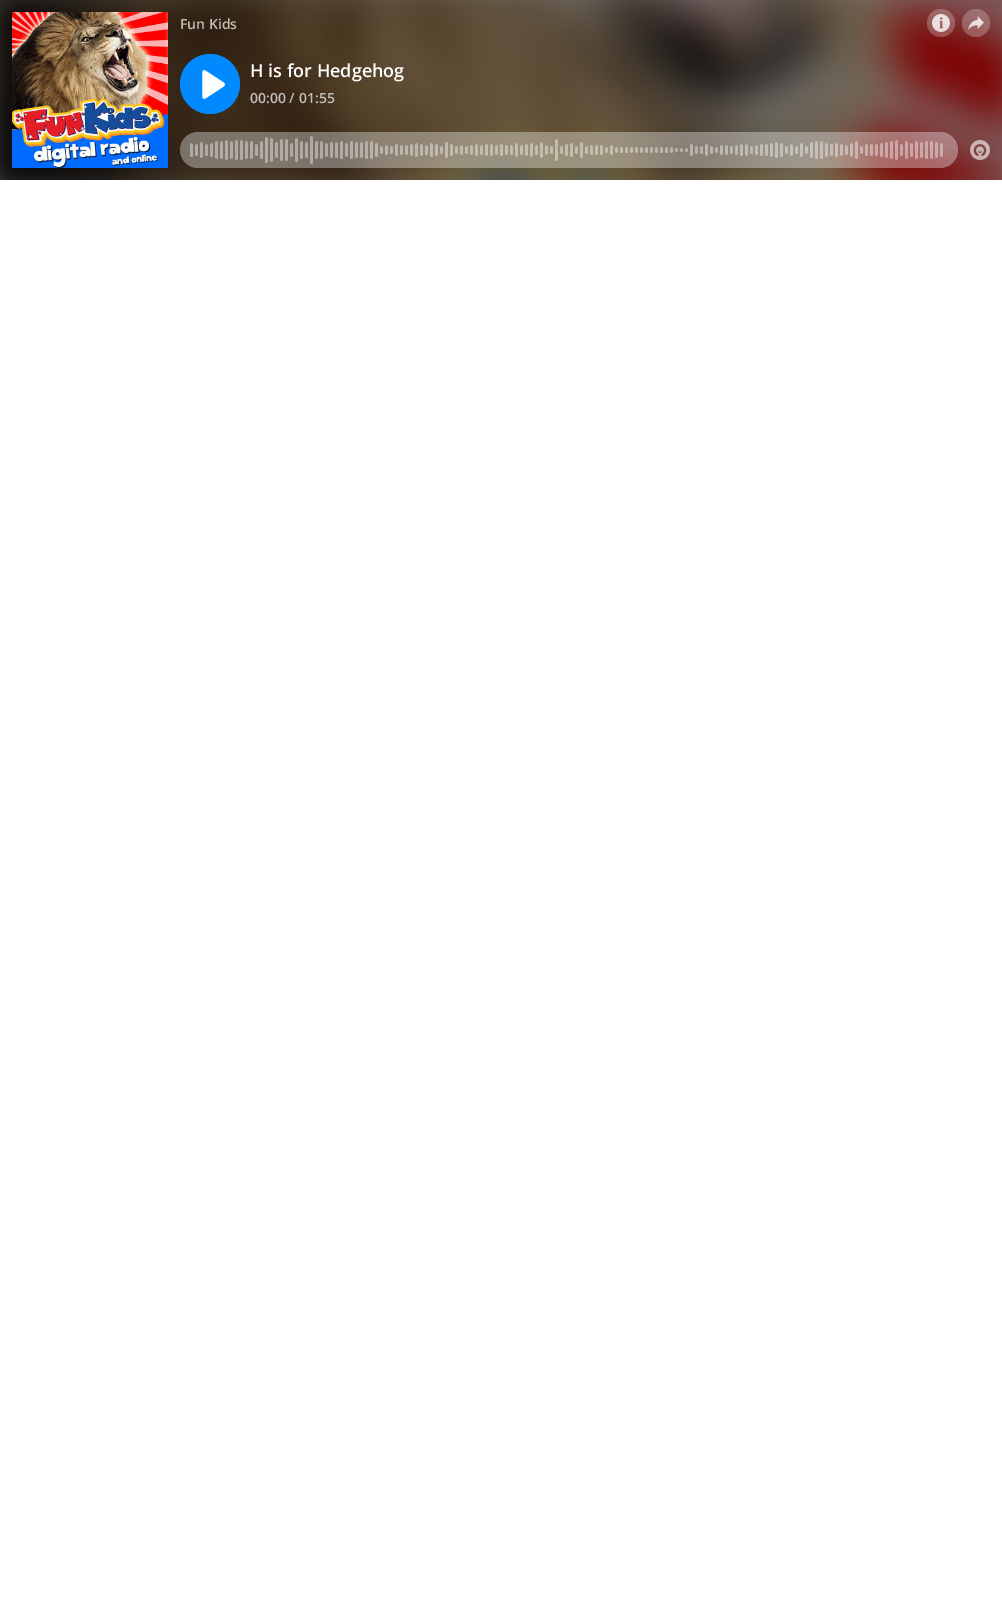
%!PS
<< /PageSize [1002 1604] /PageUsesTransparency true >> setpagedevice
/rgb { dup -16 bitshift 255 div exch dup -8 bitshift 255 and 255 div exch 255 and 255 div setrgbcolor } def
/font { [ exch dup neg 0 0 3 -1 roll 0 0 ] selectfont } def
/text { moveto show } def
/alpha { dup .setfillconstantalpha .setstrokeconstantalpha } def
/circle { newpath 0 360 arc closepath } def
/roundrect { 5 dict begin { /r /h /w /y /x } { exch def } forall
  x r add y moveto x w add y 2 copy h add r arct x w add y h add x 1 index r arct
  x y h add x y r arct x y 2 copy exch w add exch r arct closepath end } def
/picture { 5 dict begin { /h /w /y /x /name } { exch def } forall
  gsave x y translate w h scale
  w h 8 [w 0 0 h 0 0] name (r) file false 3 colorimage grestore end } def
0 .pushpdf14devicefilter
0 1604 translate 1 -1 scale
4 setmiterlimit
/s1 { /OpenSans-SemiBold 14 font 16#C1BDB8 rgb } def
/s2 { /OpenSans-SemiBold 18 font 16#FFFFFF rgb } def
16#FFFFFF rgb
0 0 1002 1604 rectfill
(pic1.raw) 0 0 1002 180 picture
(pic2.raw) 12 12 156 156 picture
s1
(Fun Kids) 180 29 text
0.24 alpha
16#FFFFFF rgb
941 23 14 circle fill
1 alpha
(pic3.raw) 932 14 18 18 picture
0.24 alpha
976 23 14 circle fill
1 alpha
(pic4.raw) 968 16 16 14 picture
16#0189FF rgb
210 84 30 circle fill
(pic5.raw) 202 70 23 29 picture
s2
(H is for Hedgehog) 250 77 text
s1
(00:00) 250 103 text
(/) 289 103 text
(01:55) 299 103 text
0.35 alpha
16#FFFFFF rgb
180 132 778 36 18 roundrect fill
1 alpha
(pic6.raw) 190 136 753 28 picture
(pic7.raw) 970 140 20 20 picture
.poppdf14devicefilter showpage
